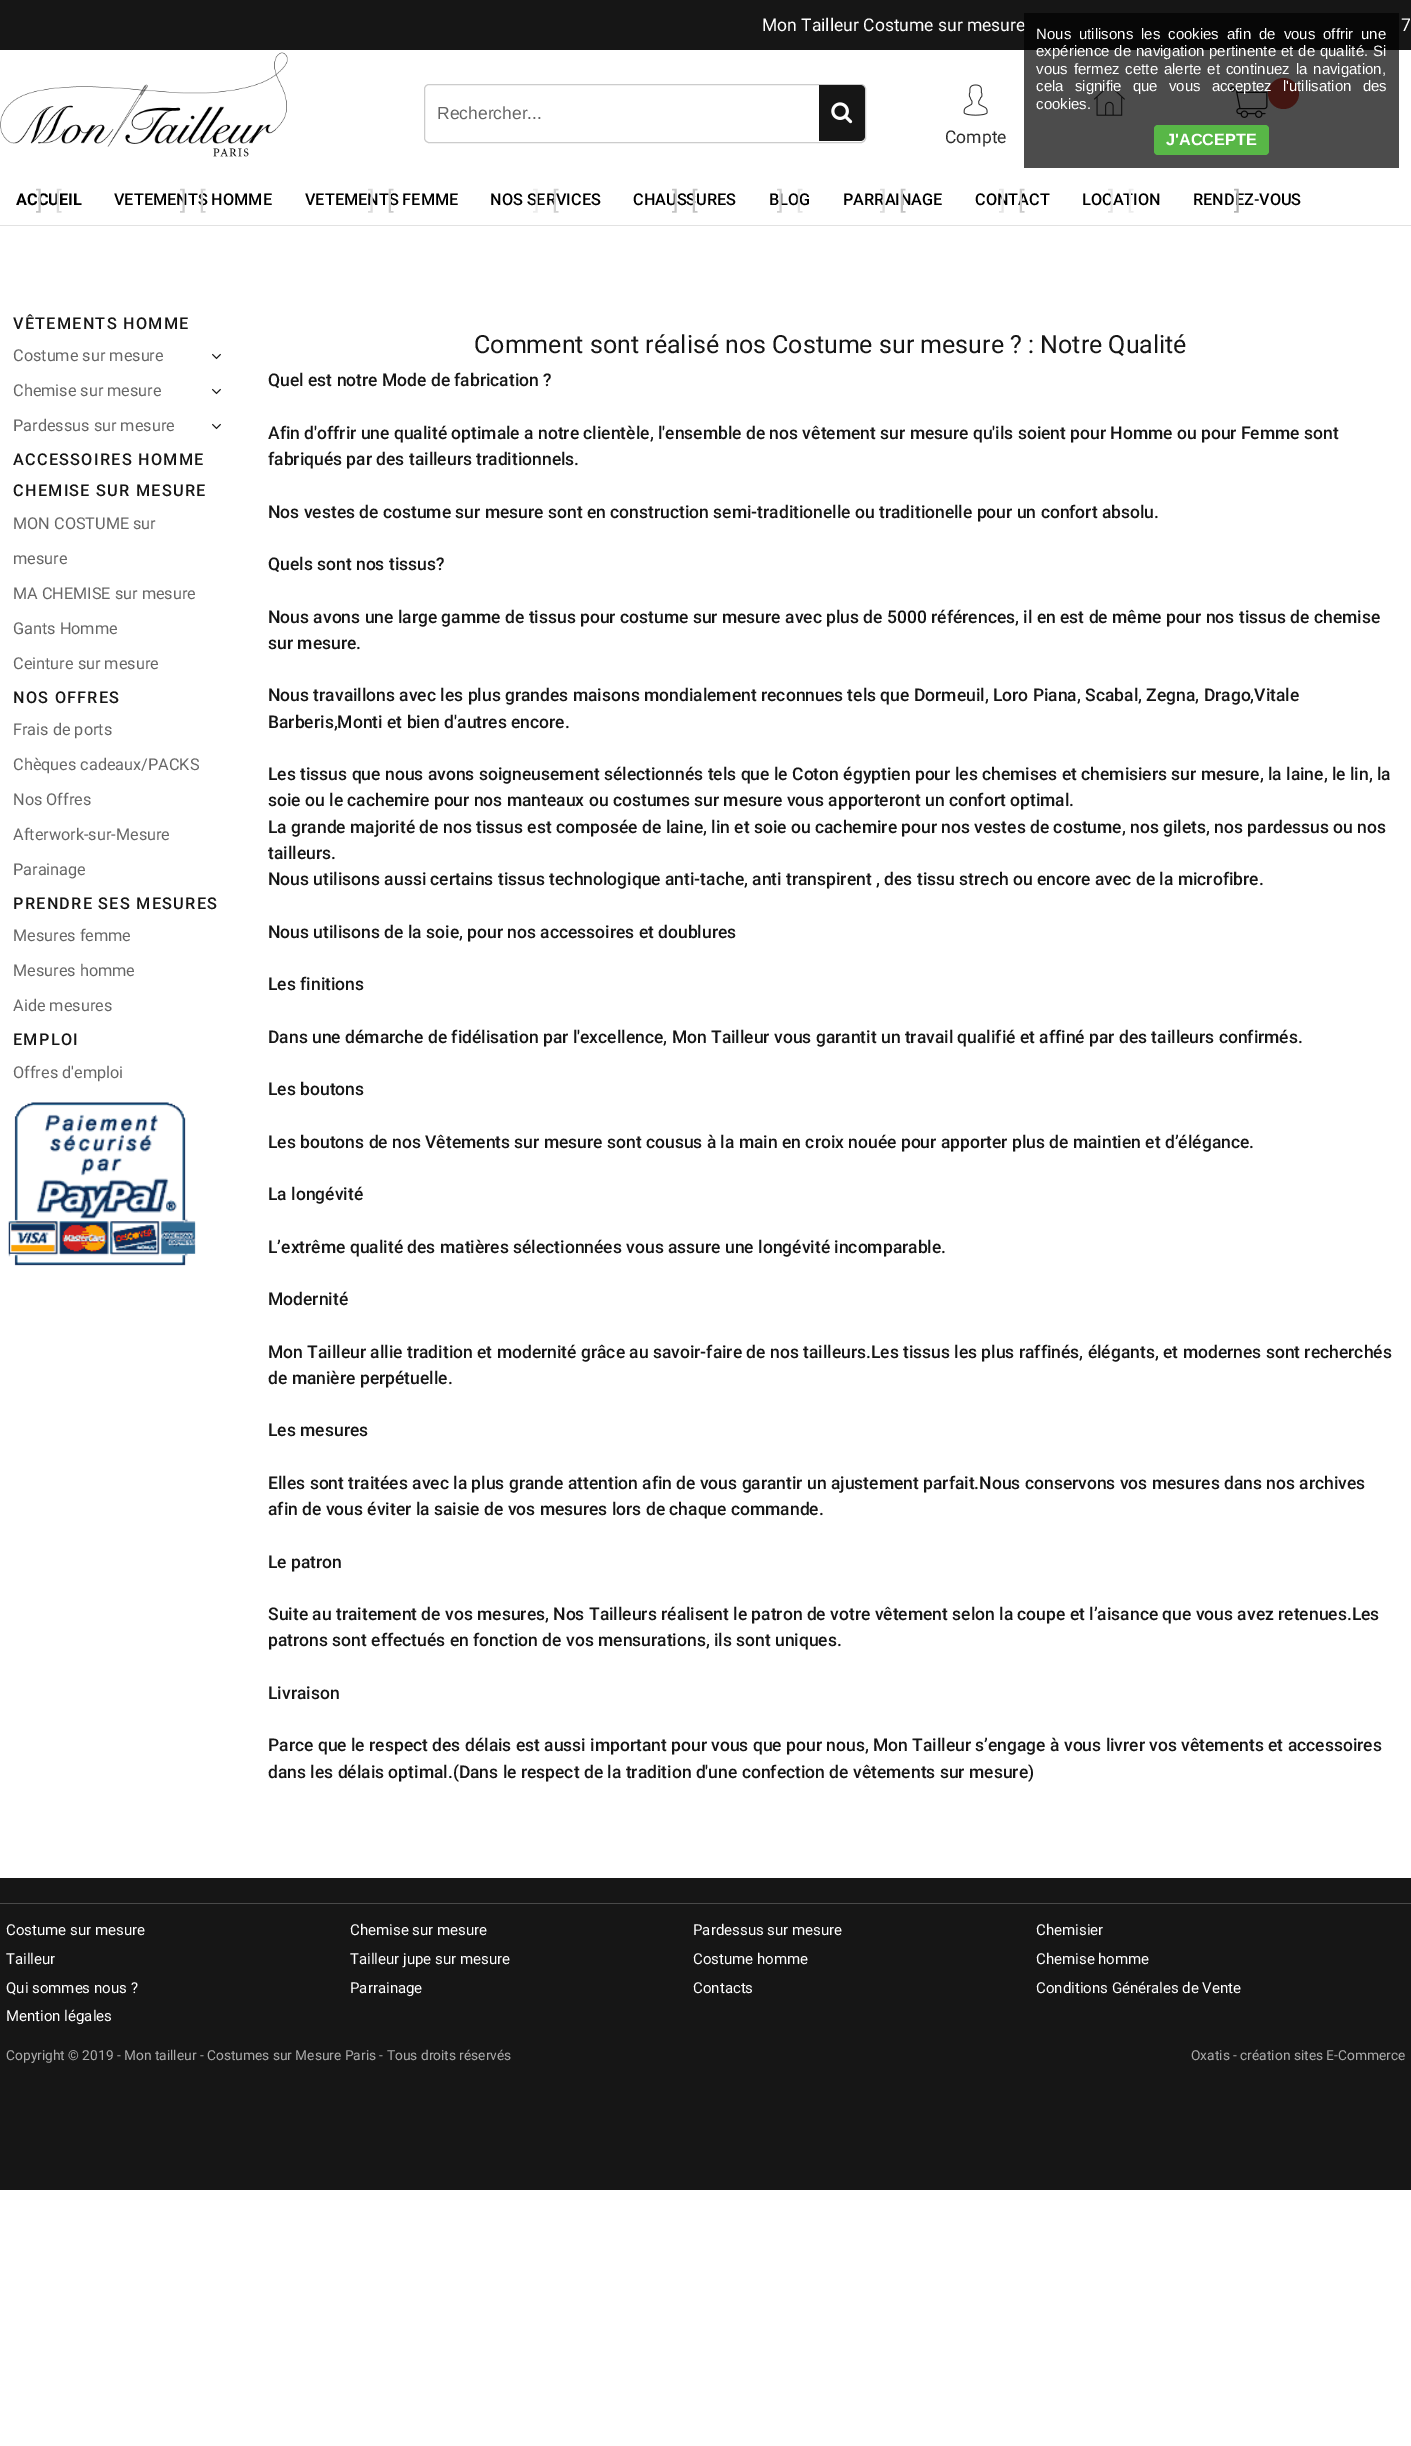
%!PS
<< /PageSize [1411 2446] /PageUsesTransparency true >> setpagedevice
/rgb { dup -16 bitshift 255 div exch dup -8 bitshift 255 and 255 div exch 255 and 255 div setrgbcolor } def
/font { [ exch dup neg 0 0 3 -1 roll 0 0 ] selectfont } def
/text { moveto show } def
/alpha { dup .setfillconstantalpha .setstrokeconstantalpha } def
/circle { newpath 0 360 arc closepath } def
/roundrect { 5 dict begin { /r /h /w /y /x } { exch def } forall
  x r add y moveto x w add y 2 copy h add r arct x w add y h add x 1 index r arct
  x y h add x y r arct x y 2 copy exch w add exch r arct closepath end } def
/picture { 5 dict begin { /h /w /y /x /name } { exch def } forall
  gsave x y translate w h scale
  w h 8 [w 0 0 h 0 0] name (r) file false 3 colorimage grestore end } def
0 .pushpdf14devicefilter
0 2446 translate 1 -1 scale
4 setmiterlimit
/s1 { /Roboto-Regular 17.5 font 16#FFFFFF rgb } def
/s2 { /LiberationSans-Regular 17.5 font 16#666666 rgb } def
/s3 { /Roboto-Regular 17.5 font 16#2E2E2E rgb } def
/s4 { /Roboto-Bold 16.25 font 16#000000 rgb } def
/s5 { /Roboto-Regular 25 font 16#C4C4C4 rgb } def
/s6 { /Roboto-Regular 25 font 16#DCDCDC rgb } def
/s7 { /Roboto-Medium 16.25 font 16#000000 rgb } def
/s8 { /Roboto-Regular 25 font 16#CBCBCB rgb } def
/s9 { /Roboto-Regular 25 font 16#D1D1D1 rgb } def
/s10 { /Roboto-Regular 25 font 16#EDEDED rgb } def
/s11 { /Roboto-Regular 25 font 16#E5E5E5 rgb } def
/s12 { /Roboto-Regular 25 font 16#B4B4B4 rgb } def
/s13 { /Roboto-Regular 16.25 font 16#666666 rgb } def
/s14 { /Roboto-Regular 25 font 16#161616 rgb } def
/s15 { /Roboto-Medium 17.5 font 16#161616 rgb } def
/s16 { /Roboto-Regular 15 font 16#FFFFFF rgb } def
/s17 { /Roboto-Regular 13.75 font 16#ACACAC rgb } def
/s18 { /LiberationSans-Regular 15 font 16#FFFFFF rgb } def
/s19 { /LiberationSans-Bold 16.25 font 16#FFFFFF rgb } def
16#FFFFFF rgb
0 0 1411 2446 rectfill
16#161616 rgb
0 0 1411 50 rectfill
16#E2E2E2 rgb
0 225 1411 1 rectfill
s1
(Mon Tailleur Costume sur mesure) 762 31 text
(7) 1401 31 text
(pic1.raw) 0 52 288 105 picture
16#CCCCCC rgb
424.5 84.5 441 58 4.5 roundrect stroke
s2
(Rechercher...) 437 119 text
16#161616 rgb
819 85 moveto 860 85 lineto 863 85 865 87 865 90 curveto 865 136 lineto 865 139 863 141 860 141 curveto 819 141 lineto closepath fill
(pic2.raw) 831 102 22 22 picture
(pic3.raw) 1093 84 32 32 picture
(pic4.raw) 1230 86 38 32 picture
16#E14A3D rgb
1283.5 93.5 15.5 circle fill
(pic5.raw) 963 84 25 32 picture
s3
(Compte) 945 143 text
s4
(ACCUEIL) 16 205 text
s5
(]) 36 209 text
s6
([) 55 209 text
s7
(VETEMENTS HOMME) 114 205 text
s8
(]) 180 209 text
s9
([) 199 209 text
s7
(VETEMENTS FEMME) 305 205 text
s6
(]) 368 209 text
s8
([) 387 209 text
s7
(NOS SERVICES) 490 205 text
s10
(]) 533 209 text
s9
([) 552 209 text
s7
(CHAUSSURES) 633 205 text
s5
(]) 672 209 text
([) 691 209 text
s7
(BLOG) 769 205 text
s9
(]) 777 209 text
s11
([) 796 209 text
s7
(PARRAINAGE) 843 205 text
s6
(]) 880 209 text
s5
([) 899 209 text
s7
(CONTACT) 975 205 text
s11
(]) 999 209 text
s8
([) 1018 209 text
s7
(LOCATION) 1082 205 text
s11
(]) 1108 209 text
s10
([) 1127 209 text
s7
(RENDEZ-VOUS) 1193 205 text
s12
(]) 1234 209 text
/Roboto-Medium 16.25 font
16#161616 rgb
13 329 moveto 1.25 0 (VÊTEMENTS HOMME) ashow
s13
(Costume sur mesure) 13 361 text
(pic6.raw) 212 353 9 7 picture
(Chemise sur mesure) 13 396 text
(pic6.raw) 212 388 9 7 picture
(Pardessus sur mesure) 13 431 text
(pic6.raw) 212 423 9 7 picture
/Roboto-Medium 16.25 font
16#161616 rgb
13 465 moveto 1.25 0 (ACCESSOIRES HOMME) ashow
13 496 moveto 1.25 0 (CHEMISE SUR MESURE) ashow
s13
(MON COSTUME sur) 13 529 text
(mesure) 13 564 text
(MA CHEMISE sur mesure) 13 599 text
(Gants Homme) 13 634 text
(Ceinture sur mesure) 13 669 text
/Roboto-Medium 16.25 font
16#161616 rgb
13 703 moveto 1.25 0 (NOS OFFRES) ashow
s13
(Frais de ports) 13 735 text
(Chèques cadeaux/PACKS) 13 770 text
(Nos Offres) 13 805 text
(Afterwork-sur-Mesure) 13 840 text
(Parainage) 13 875 text
/Roboto-Medium 16.25 font
16#161616 rgb
13 909 moveto 1.25 0 (PRENDRE SES MESURES) ashow
s13
(Mesures femme) 13 941 text
(Mesures homme) 13 976 text
(Aide mesures) 13 1011 text
/Roboto-Medium 16.25 font
16#161616 rgb
13 1045 moveto 1.25 0 (EMPLOI) ashow
s13
(Offres d'emploi) 13 1078 text
(pic7.raw) 8 1102 188 164 picture
s14
(Comment sont réalisé nos Costume sur mesure ? : Notre Qualité) 474 353 text
s15
(Quel est notre Mode de fabrication ?) 268 386 text
(Afin d'offrir une qualité optimale a notre clientèle, l'ensemble de nos vêtement sur mesure qu'ils soient pour Homme ou pour Femme sont) 268 439 text
(fabriqués par des tailleurs traditionnels.) 268 465 text
(Nos vestes de costume sur mesure sont en construction semi-traditionelle ou traditionelle pour un confort absolu.) 268 518 text
(Quels sont nos tissus?) 268 570 text
(Nous avons une large gamme de tissus pour costume sur mesure avec plus de 5000 références, il en est de même pour nos tissus de chemise) 268 623 text
(sur mesure.) 268 649 text
(Nous travaillons avec les plus grandes maisons mondialement reconnues tels que Dormeuil, Loro Piana, Scabal, Zegna, Drago,Vitale) 268 701 text
(Barberis,Monti et bien d'autres encore.) 268 728 text
(Les tissus que nous avons soigneusement sélectionnés tels que le Coton égyptien pour les chemises et chemisiers sur mesure, la laine, le lin, la) 268 780 text
(soie ou le cachemire pour nos manteaux ou costumes sur mesure vous apporteront un confort optimal.) 268 806 text
(La grande majorité de nos tissus est composée de laine, lin et soie ou cachemire pour nos vestes de costume, nos gilets, nos pardessus ou nos) 268 833 text
(tailleurs.) 268 859 text
(Nous utilisons aussi certains tissus technologique anti-tache, anti transpirent , des tissu strech ou encore avec de la microfibre.) 268 885 text
(Nous utilisons de la soie, pour nos accessoires et doublures) 268 938 text
(Les finitions) 268 990 text
(Dans une démarche de fidélisation par l'excellence, Mon Tailleur vous garantit un travail qualifié et affiné par des tailleurs confirmés.) 268 1043 text
(Les boutons) 268 1095 text
(Les boutons de nos Vêtements sur mesure sont cousus à la main en croix nouée pour apporter plus de maintien et d’élégance.) 268 1148 text
(La longévité) 268 1200 text
(L’extrême qualité des matières sélectionnées vous assure une longévité incomparable.) 268 1253 text
(Modernité) 268 1305 text
(Mon Tailleur allie tradition et modernité grâce au savoir-faire de nos tailleurs.Les tissus les plus raffinés, élégants, et modernes sont recherchés) 268 1358 text
(de manière perpétuelle.) 268 1384 text
(Les mesures) 268 1436 text
(Elles sont traitées avec la plus grande attention afin de vous garantir un ajustement parfait.Nous conservons vos mesures dans nos archives) 268 1489 text
(afin de vous éviter la saisie de vos mesures lors de chaque commande.) 268 1515 text
(Le patron) 268 1568 text
(Suite au traitement de vos mesures, Nos Tailleurs réalisent le patron de votre vêtement selon la coupe et l’aisance que vous avez retenues.Les) 268 1620 text
(patrons sont effectués en fonction de vos mensurations, ils sont uniques.) 268 1646 text
(Livraison) 268 1699 text
(Parce que le respect des délais est aussi important pour vous que pour nous, Mon Tailleur s’engage à vous livrer vos vêtements et accessoires) 268 1751 text
(dans les délais optimal.\(Dans le respect de la tradition d'une confection de vêtements sur mesure\)) 268 1778 text
0 1878 1411 312 rectfill
16#494949 rgb
0 1903 1411 1 rectfill
s16
(Costume sur mesure) 6 1935 text
(Chemise sur mesure) 350 1935 text
(Pardessus sur mesure) 693 1935 text
(Chemisier) 1036 1935 text
(Tailleur) 6 1964 text
(Tailleur jupe sur mesure) 350 1964 text
(Costume homme) 693 1964 text
(Chemise homme) 1036 1964 text
(Qui sommes nous ?) 6 1993 text
(Parrainage) 350 1993 text
(Contacts) 693 1993 text
(Conditions Générales de Vente) 1036 1993 text
(Mention légales) 6 2021 text
s17
(Copyright © 2019 - Mon tailleur - Costumes sur Mesure Paris - Tous droits réservés) 6 2060 text
(Oxatis - création sites E-Commerce) 1191 2060 text
0.7 alpha
16#000000 rgb
1024 13 375 155 rectfill
/LiberationSans-Regular 15 font
1 alpha
16#FFFFFF rgb
1036 39 moveto 3.75 0 32 (Nous utilisons les cookies afin de vous offrir une) widthshow
1036 56 moveto 0.75 0 32 (expérience de navigation pertinente et de qualité. Si) widthshow
1036 74 moveto 1.75 0 32 (vous fermez cette alerte et continuez la navigation,) widthshow
1036 91 moveto 7 0 32 (cela signifie que vous acceptez l'utilisation des) widthshow
(cookies.) 1036 109 text
16#58B747 rgb
1154 125 115 30 4 roundrect fill
s19
(J'ACCEPTE) 1166 145 text
.poppdf14devicefilter showpage
